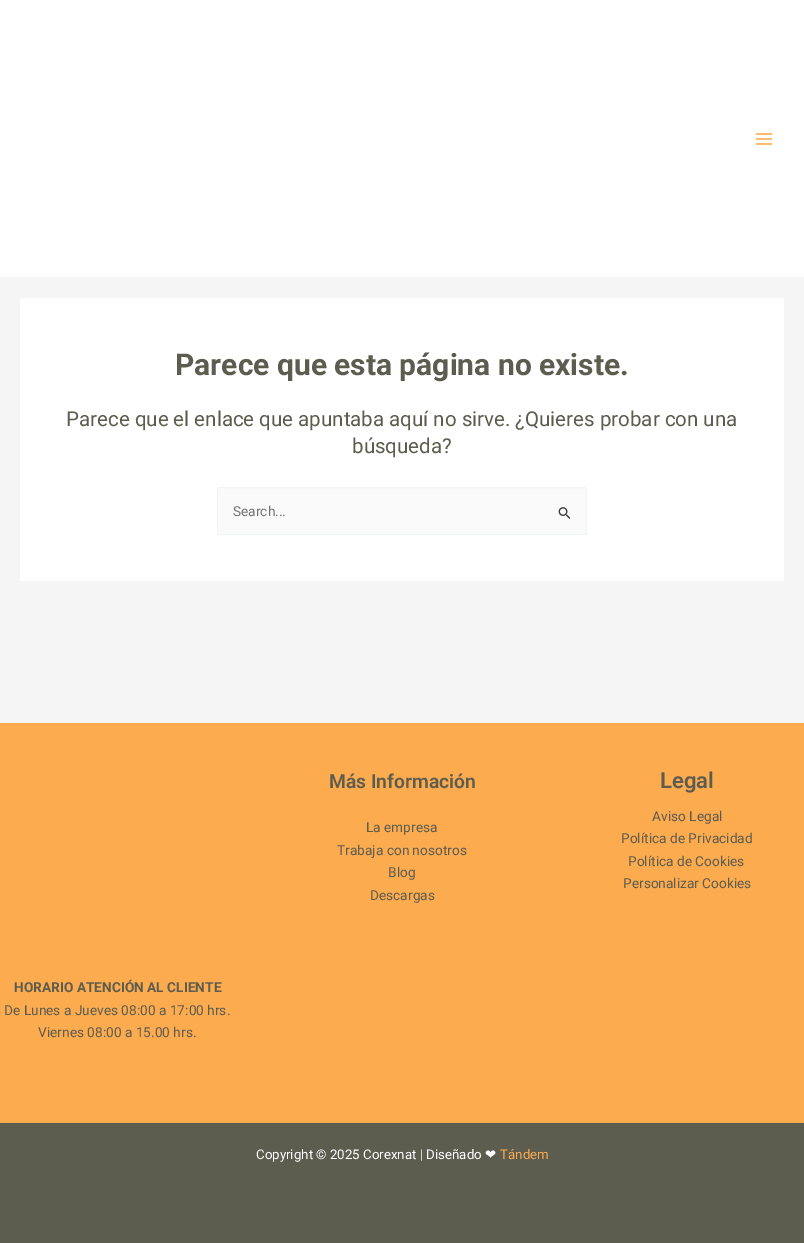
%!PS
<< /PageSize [804 1243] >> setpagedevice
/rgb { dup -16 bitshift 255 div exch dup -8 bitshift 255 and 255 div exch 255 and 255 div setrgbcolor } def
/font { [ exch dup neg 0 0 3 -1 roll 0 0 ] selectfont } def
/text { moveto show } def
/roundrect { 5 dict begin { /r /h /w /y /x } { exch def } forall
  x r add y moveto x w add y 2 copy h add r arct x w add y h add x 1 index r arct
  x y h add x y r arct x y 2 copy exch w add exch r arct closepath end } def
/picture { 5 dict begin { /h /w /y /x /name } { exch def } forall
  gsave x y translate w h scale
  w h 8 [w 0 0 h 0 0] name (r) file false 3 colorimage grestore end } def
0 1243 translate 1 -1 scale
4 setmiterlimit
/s1 { /Roboto-Bold 30 font 16#5C5C4F rgb } def
/s2 { /Roboto-Regular 20.5 font 16#5C5C4F rgb } def
/s3 { /Roboto-Regular 13.7 font 16#757575 rgb } def
/s4 { /Roboto-SemiBold 19.25 font 16#5C5C4F rgb } def
/s5 { /Roboto-Regular 13.7 font 16#5C5C4F rgb } def
/s6 { /Roboto-SemiBold 22 font 16#5C5C4F rgb } def
/s7 { /Roboto-Bold 13.7 font 16#5C5C4F rgb } def
/s8 { /Roboto-Regular 13.3 font 16#FFFFFF rgb } def
/s9 { /DejaVuSans-Regular 13.3 font 16#FFFFFF rgb } def
/s10 { /Roboto-Regular 13.3 font 16#FCAB4F rgb } def
16#F5F5F5 rgb
0 0 804 1243 rectfill
16#FFFFFF rgb
0 0 804 277 rectfill
(pic1.raw) 755 133 18 12 picture
20 298 764 283 rectfill
s1
(Parece que esta página no existe.) 175 375 text
s2
(Parece que el enlace que apuntaba aquí no sirve. ¿Quieres probar con una) 66 426 text
(búsqueda?) 352 453 text
16#FAFAFA rgb
217.5 487.5 369 47 1.5 roundrect gsave fill grestore
16#F2F5F7 rgb
stroke
s3
(Search...) 233 516 text
(pic2.raw) 558 507 12 12 picture
16#FCAB4F rgb
0 723 804 400 rectfill
s4
(Más Información) 329 788 text
s5
(La empresa) 366 832 text
(Trabaja con nosotros) 337 855 text
(Blog) 388 877 text
(Descargas) 370 900 text
s6
(Legal) 660 788 text
s5
(Aviso Legal) 652 821 text
(Política de Privacidad) 621 843 text
(Política de Cookies) 628 866 text
(Personalizar Cookies) 623 888 text
s7
(HORARIO ATENCIÓN AL CLIENTE) 14 992 text
s5
(De Lunes a Jueves 08:00 a 17:00 hrs.) 4 1015 text
(Viernes 08:00 a 15.00 hrs.) 38 1037 text
0 1123 804 120 rectfill
s8
(Copyright © 2025 Corexnat | Diseñado) 256 1159 text
s9
(❤) 485 1159 text
s10
(Tándem) 500 1159 text
showpage
